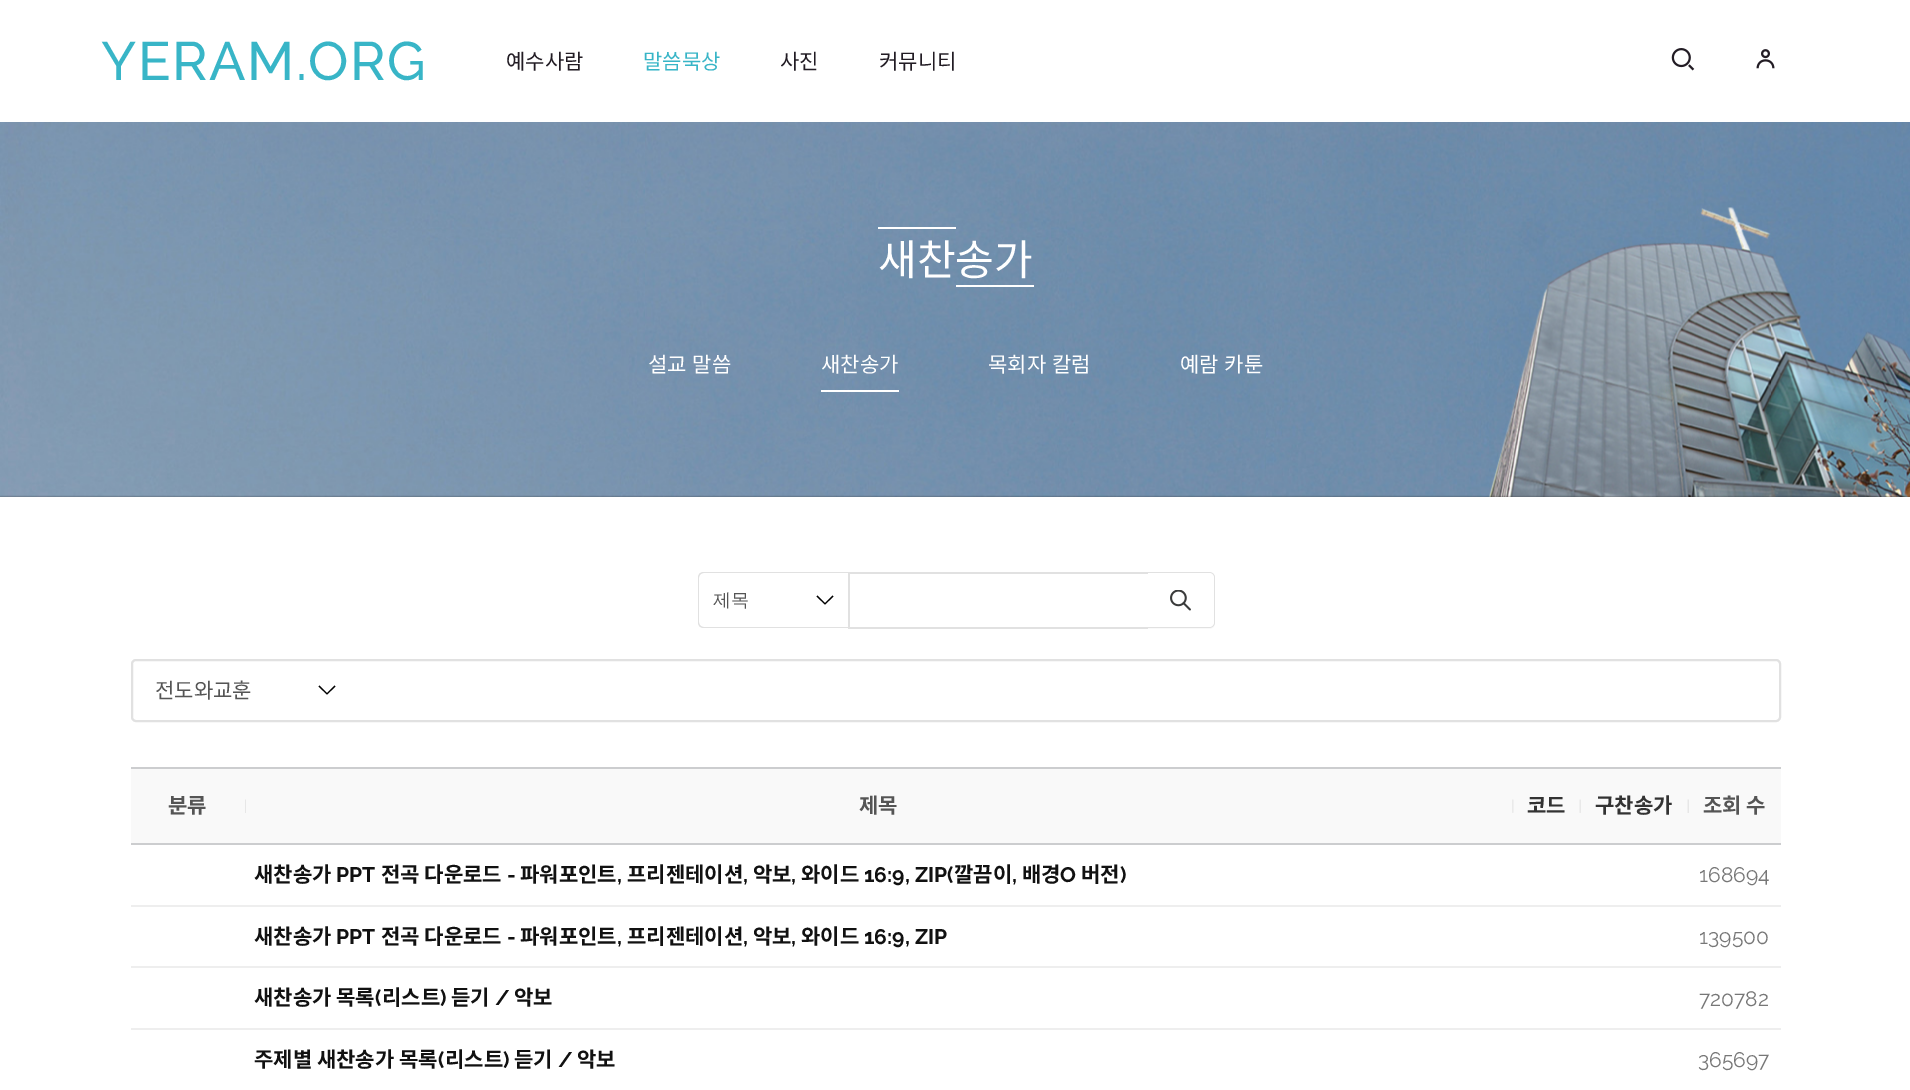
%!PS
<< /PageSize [1910 1090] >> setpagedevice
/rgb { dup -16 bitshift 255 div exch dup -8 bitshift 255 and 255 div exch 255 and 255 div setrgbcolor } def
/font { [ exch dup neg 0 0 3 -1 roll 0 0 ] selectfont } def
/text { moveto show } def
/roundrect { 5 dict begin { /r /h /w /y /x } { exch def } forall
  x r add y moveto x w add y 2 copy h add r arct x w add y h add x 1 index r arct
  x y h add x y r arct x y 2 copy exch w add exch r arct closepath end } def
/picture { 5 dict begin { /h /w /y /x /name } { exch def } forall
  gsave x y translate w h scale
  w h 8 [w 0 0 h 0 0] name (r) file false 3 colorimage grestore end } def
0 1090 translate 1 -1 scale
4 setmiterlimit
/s1 { /NotoSansKR-Regular 21 font 16#221C24 rgb } def
/s2 { /NotoSansKR-Regular 21 font 16#38B5C7 rgb } def
/s3 { /NotoSansKR-Regular 42 font 16#FFFFFF rgb } def
/s4 { /NotoSansKR-Regular 21 font 16#FFFFFF rgb } def
/s5 { /WenQuanYiZenHei-Medium 18 font 16#555555 rgb } def
/s6 { /NotoSansKR-Regular 21 font 16#555555 rgb } def
/s7 { /NotoSansKR-Bold 21 font 16#555555 rgb } def
/s8 { /NotoSansKR-Bold 21 font 16#333333 rgb } def
/s9 { /NotoSansKR-Bold 21 font 16#111111 rgb } def
/s10 { /Raleway-Bold 21 font 16#111111 rgb } def
/s11 { /Raleway-Regular 21 font 16#777777 rgb } def
16#FFFFFF rgb
0 0 1910 1090 rectfill
/Raleway-Medium 54 font
16#38B5C7 rgb
101 80 moveto 1.5 0 (YERAM.ORG) ashow
s1
(예수사람) 506 69 text
s2
(말씀묵상) 643 69 text
s1
(사진) 780 69 text
(커뮤니티) 879 69 text
(pic1.raw) 1671 48 24 23 picture
(pic2.raw) 1756 49 19 20 picture
(pic3.raw) 0 122 1910 375 picture
16#FFFFFF rgb
878 227 78 2 rectfill
s3
(새찬송가) 878 275 text
956 285 78 2 rectfill
/NotoSansKR-Regular 21 font
648 372 moveto 1 0 32 (설교 말씀) widthshow
821 390 78 2 rectfill
(새찬송가) 821 372 text
988 372 moveto 1 0 32 (목회자 칼럼) widthshow
1180 372 moveto 1 0 32 (예람 카툰) widthshow
16#000000 rgb
833.5 596.5 moveto 825 604.5 lineto 816.5 596.5 lineto 817.5 595.5 lineto 825 603 lineto 832.5 595.5 lineto closepath fill
16#E1E1E1 rgb
704 572 moveto 848 572 lineto 848 628 lineto 704 628 lineto 700 628 698 626 698 622 curveto 698 578 lineto 698 574 700 572 704 572 curveto closepath 704 573 moveto 848 573 lineto 848 627 lineto 704 627 lineto 701 627 699 625 699 622 curveto 699 578 lineto 699 575 701 573 704 573 curveto closepath eofill
s5
(제목) 713 606 text
16#E1E1E1 rgb
848 572 300 2 rectfill
848 627 300 2 rectfill
848 572 2 57 rectfill
16#F9F9F9 rgb
1148 572 moveto 1209 572 lineto 1212.5 572 1215 574.5 1215 578 curveto 1215 623 lineto 1215 626.5 1212.5 629 1209 629 curveto 1148 629 lineto closepath fill
16#E1E1E1 rgb
1148 572 moveto 1209 572 lineto 1212 572 1215 574 1215 578 curveto 1215 622 lineto 1215 626 1212 628 1209 628 curveto 1148 628 lineto closepath 1148 573 moveto 1209 573 lineto 1211 573 1214 575 1214 578 curveto 1214 622 lineto 1214 625 1211 627 1209 627 curveto 1148 627 lineto closepath eofill
16#FFFFFF rgb
1148 573 moveto 1209 573 lineto 1212 573 1214 575 1214 578 curveto 1214 622 lineto 1214 625 1212 627 1209 627 curveto 1148 627 lineto closepath fill
(pic4.raw) 1170 590 21 21 picture
16#E1E1E1 rgb
2 setlinewidth
132 660 1648 61 4 roundrect stroke
16#000000 rgb
335.5 686.5 moveto 327 694.5 lineto 318.5 686.5 lineto 319.5 685.5 lineto 327 693 lineto 334.5 685.5 lineto closepath fill
s6
(전도와교훈) 155 698 text
16#CCCDCF rgb
131 767 1650 2 rectfill
16#F9F9F9 rgb
131 769 1650 74 rectfill
s7
(분류) 168 813 text
(pic5.raw) 245 799 1 14 picture
(제목) 859 813 text
(pic6.raw) 1512 799 2 14 picture
s8
(코드) 1527 813 text
(pic7.raw) 1579 799 2 14 picture
(구찬송가) 1595 813 text
(pic8.raw) 1687 799 2 14 picture
16#CCCDCF rgb
131 843 1650 2 rectfill
s7
(조회 수) 1703 813 text
s9
(새찬송가) 254 882 text
s10
(PPT) 336 882 text
s9
(전곡 다운로드) 381 882 text
s10
(-) 507 882 text
s9
(파워포인트) 520 882 text
(프리젠테이션) 627 882 text
(악보) 753 882 text
(와이드) 801 882 text
s10
(16:9, ZIP\() 864 882 text
s9
(깔끔이) 954 882 text
(배경) 1022 882 text
s10
(O) 1060 882 text
s9
(버전) 1081 882 text
s10
(\)) 1120 882 text
(,) 617 882 text
(,) 743 882 text
(,) 791 882 text
(,) 1012 882 text
s11
(168694) 1699 882 text
s9
(새찬송가) 254 944 text
s10
(PPT) 336 944 text
s9
(전곡 다운로드) 381 944 text
s10
(-) 507 944 text
s9
(파워포인트) 520 944 text
(프리젠테이션) 627 944 text
(악보) 753 944 text
(와이드) 801 944 text
s10
(16:9, ZIP) 864 944 text
(,) 617 944 text
(,) 743 944 text
(,) 791 944 text
16#EEEEEE rgb
131 905 1650 2 rectfill
s11
(139500) 1699 944 text
s9
(새찬송가 목록) 254 1005 text
s10
(\() 375 1005 text
s9
(리스트) 382 1005 text
s10
(\)) 440 1005 text
s9
(듣기) 451 1005 text
s10
(/) 495 1005 text
s9
(악보) 514 1005 text
16#EEEEEE rgb
131 966 1650 2 rectfill
s11
(720782) 1699 1006 text
s9
(주제별 새찬송가 목록) 254 1067 text
s10
(\() 438 1067 text
s9
(리스트) 445 1067 text
s10
(\)) 503 1067 text
s9
(듣기) 514 1067 text
s10
(/) 558 1067 text
s9
(악보) 577 1067 text
16#EEEEEE rgb
131 1028 1650 2 rectfill
s11
(365697) 1698 1067 text
showpage
